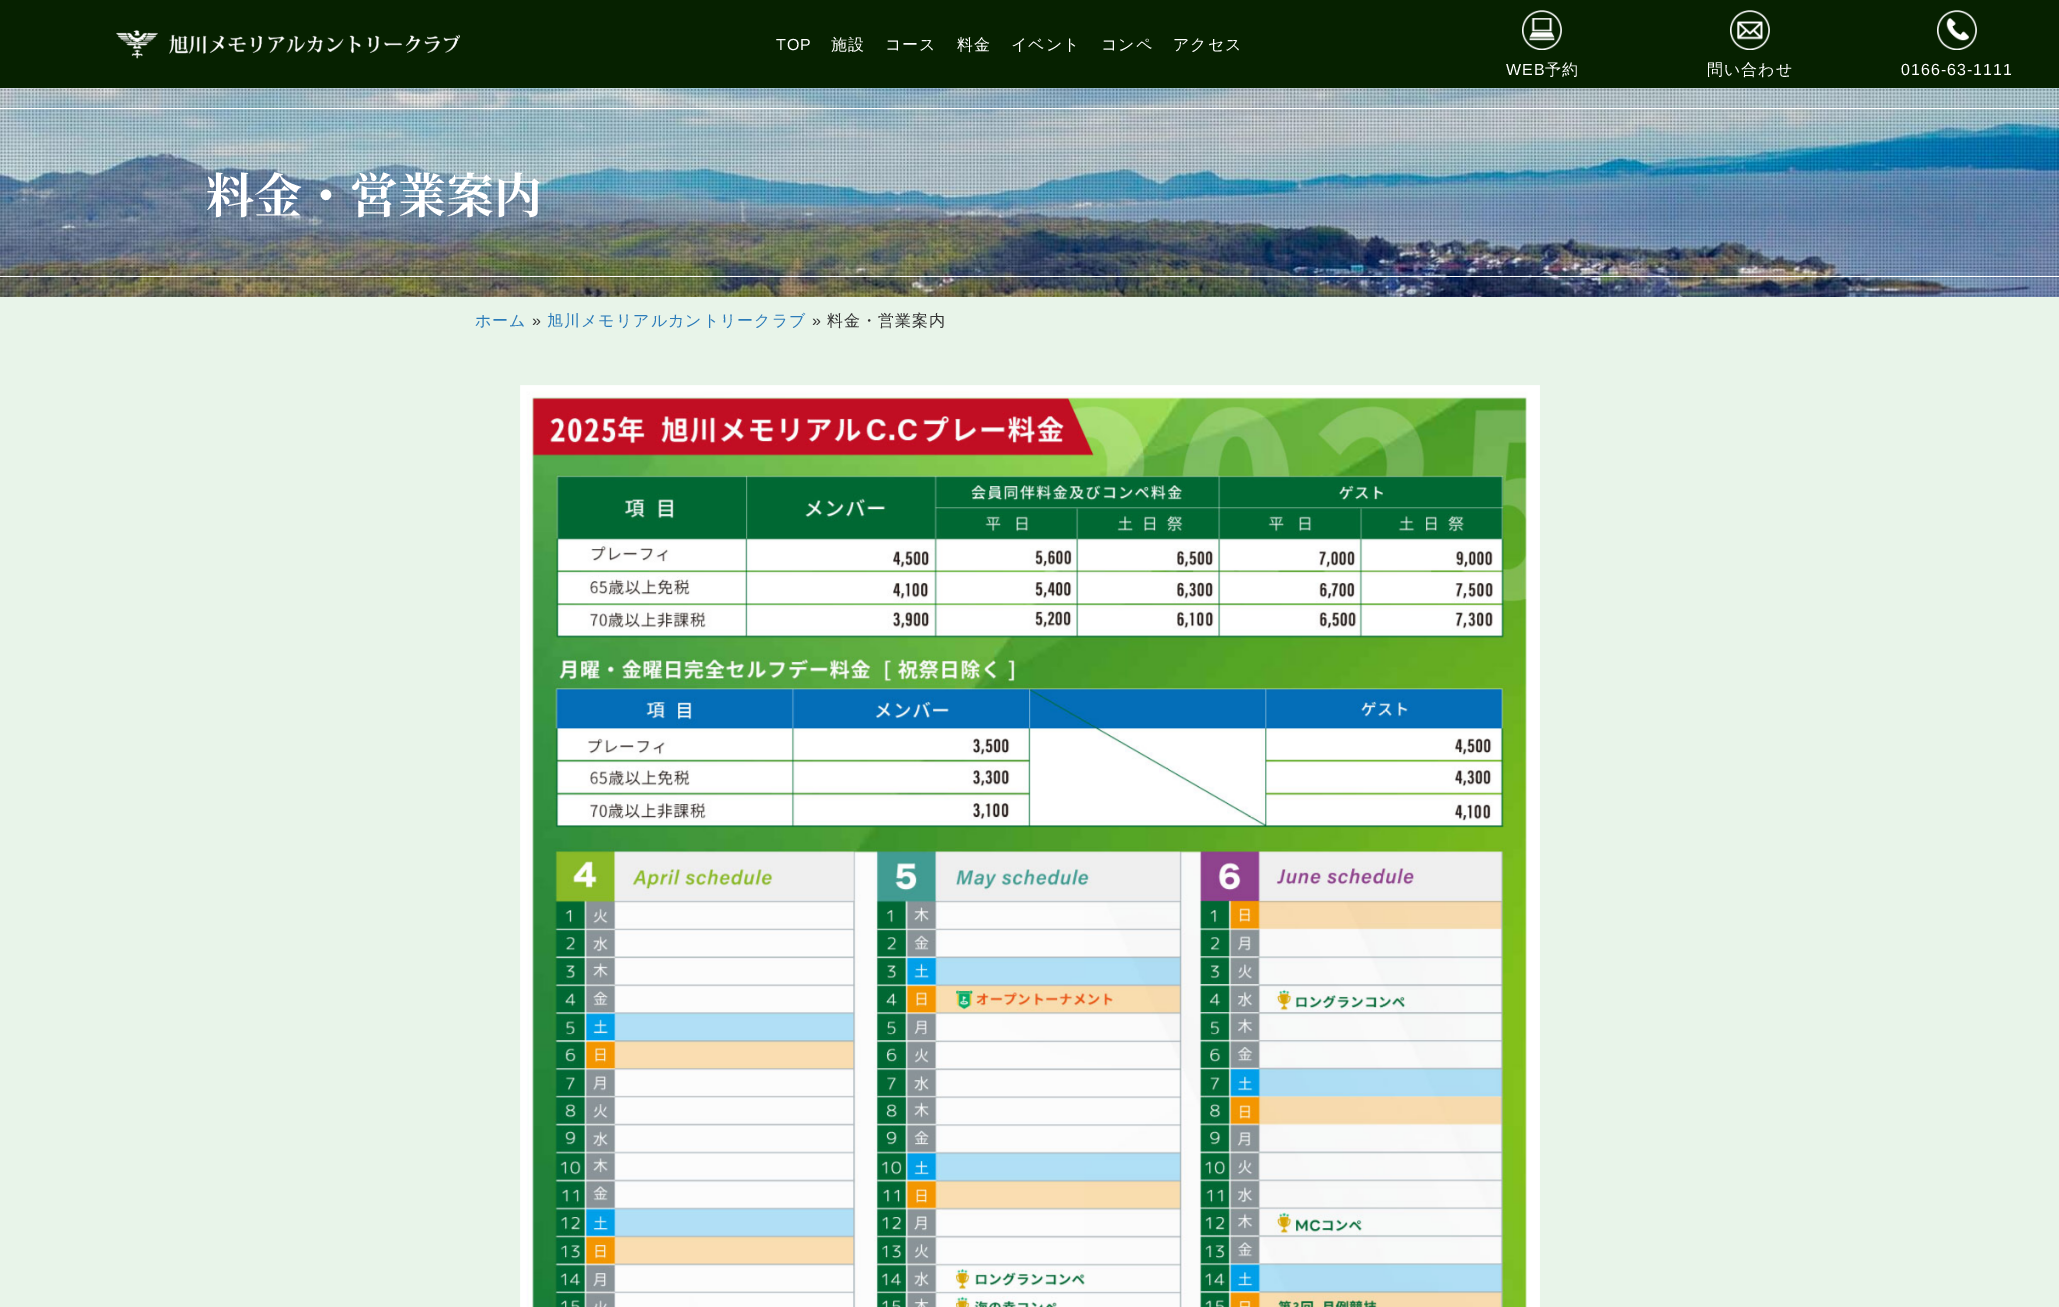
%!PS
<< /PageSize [2059 1307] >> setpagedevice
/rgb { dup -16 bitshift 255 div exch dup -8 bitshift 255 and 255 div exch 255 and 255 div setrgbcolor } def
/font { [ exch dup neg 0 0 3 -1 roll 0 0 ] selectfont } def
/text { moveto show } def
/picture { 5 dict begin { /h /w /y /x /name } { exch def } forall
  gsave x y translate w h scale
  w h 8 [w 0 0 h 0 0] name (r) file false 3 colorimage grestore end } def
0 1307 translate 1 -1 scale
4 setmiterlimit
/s1 { /NotoSerifJP-ExtraLight 48 font 16#FFFFFF rgb } def
16#E8F4E9 rgb
0 0 2059 1307 rectfill
16#062100 rgb
0 0 2059 88 rectfill
(pic1.raw) 116 30 344 29 picture
/LiberationSans-Regular 16 font
16#FFFFFF rgb
776 50 moveto 1 0 (TOP) ashow
/WenQuanYiZenHei-Medium 16 font
831 50 moveto 1 0 (施設) ashow
885 50 moveto 1 0 (コース) ashow
957 50 moveto 1 0 (料金) ashow
1011 50 moveto 1 0 (イベント) ashow
1101 50 moveto 1 0 (コンペ) ashow
1173 50 moveto 1 0 (アクセス) ashow
(pic2.raw) 1522 10 40 40 picture
/LiberationSans-Regular 16 font
1506 75 moveto 1 0 (WEB) ashow
/WenQuanYiZenHei-Medium 16 font
1545 75 moveto 1 0 (予約) ashow
(pic3.raw) 1730 10 40 40 picture
1707 75 moveto 1 0 (問い合わせ) ashow
(pic4.raw) 1937 10 40 40 picture
/LiberationSans-Regular 16 font
1901 75 moveto 1 0 (0166-63-1111) ashow
(pic5.raw) 0 88 2059 209 picture
0 108 2059 1 rectfill
s1
(料金・営業案内) 206 213 text
0 276 2059 1 rectfill
/WenQuanYiZenHei-Medium 16 font
16#2B7BB9 rgb
475 326 moveto 1 0 (ホーム) ashow
/LiberationSans-Regular 16 font
16#333333 rgb
532 326 moveto 1 0 (») ashow
/WenQuanYiZenHei-Medium 16 font
16#2B7BB9 rgb
547 326 moveto 1 0 (旭川メモリアルカントリークラブ) ashow
/LiberationSans-Regular 16 font
16#333333 rgb
812 326 moveto 1 0 (») ashow
/WenQuanYiZenHei-Medium 16 font
827 326 moveto 1 0 (料金・営業案内) ashow
(pic6.raw) 520 385 1020 922 picture
showpage
